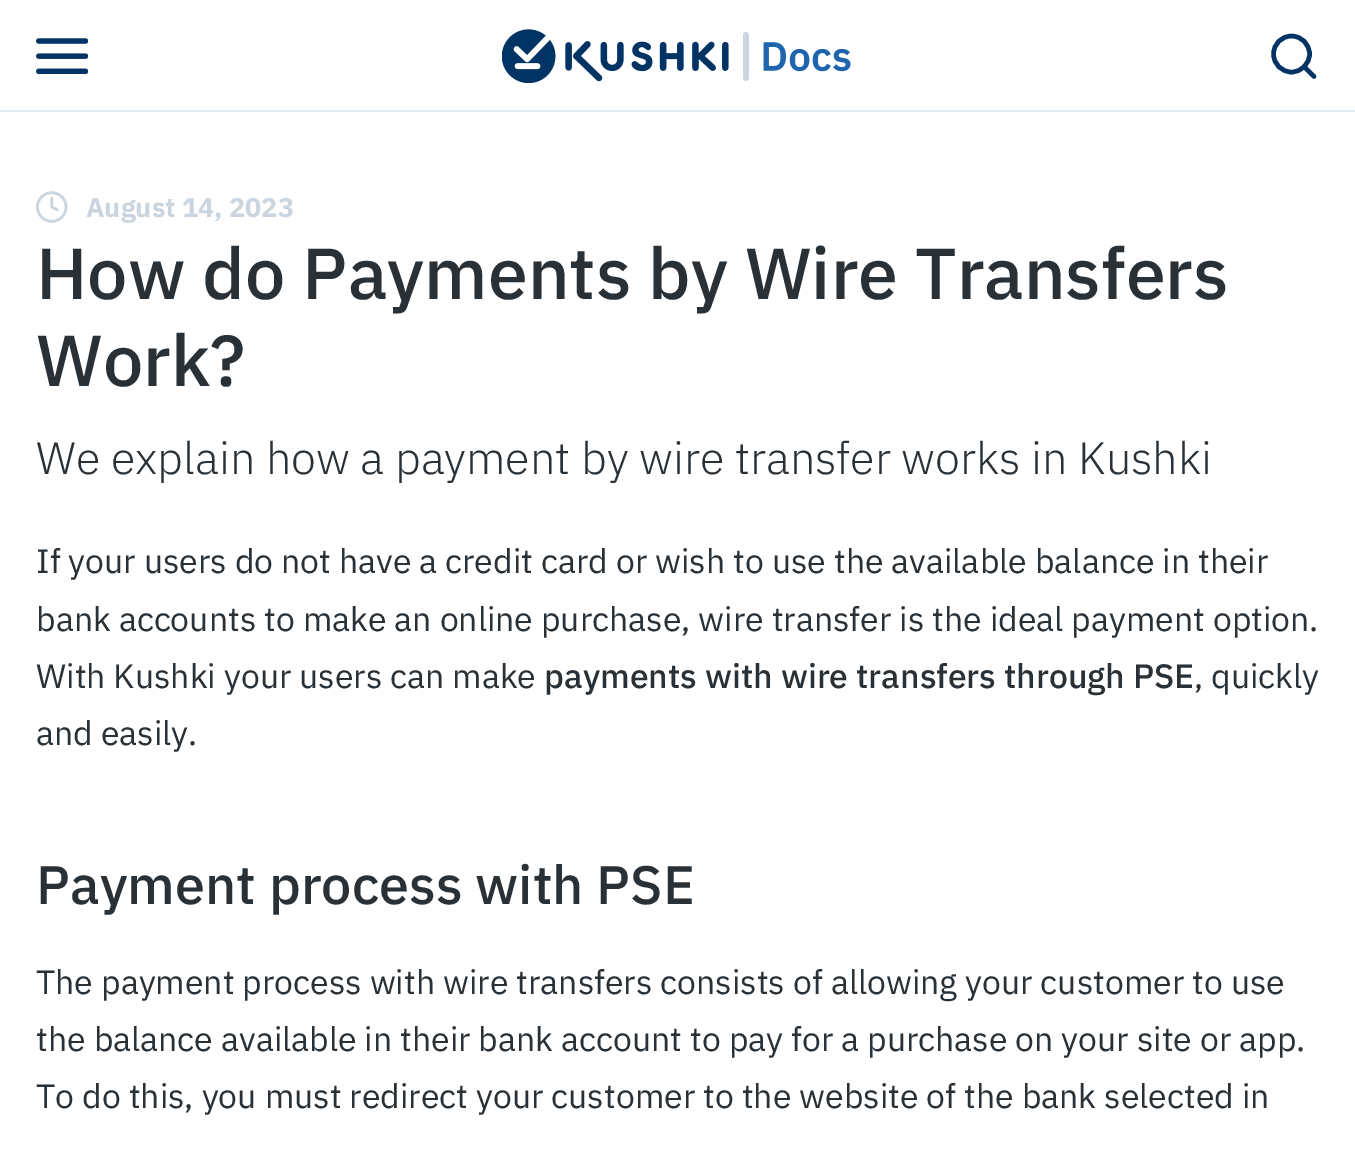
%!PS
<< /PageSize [1355 1155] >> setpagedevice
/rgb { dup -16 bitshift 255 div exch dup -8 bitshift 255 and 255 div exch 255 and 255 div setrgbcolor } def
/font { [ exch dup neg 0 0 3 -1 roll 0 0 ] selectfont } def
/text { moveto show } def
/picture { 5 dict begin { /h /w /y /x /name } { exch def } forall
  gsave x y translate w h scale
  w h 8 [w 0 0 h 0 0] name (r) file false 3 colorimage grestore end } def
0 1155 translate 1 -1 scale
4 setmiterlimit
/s1 { /IBMPlexSans-Bold 27 font 16#CBD5E0 rgb } def
/s2 { /IBMPlexSans-Medium 72 font 16#293036 rgb } def
/s3 { /IBMPlexSans-Light 45 font 16#293036 rgb } def
/s4 { /IBMPlexSans-Regular 33.75 font 16#293036 rgb } def
/s5 { /IBMPlexSans-Medium 33.75 font 16#293036 rgb } def
/s6 { /IBMPlexSans-Medium 54 font 16#293036 rgb } def
16#FFFFFF rgb
0 0 1355 1155 rectfill
16#E2E8F0 rgb
0 110 1355 2 rectfill
(pic1.raw) 36 38 52 36 picture
(pic2.raw) 502 29 349 54 picture
16#023365 rgb
4.5 setlinewidth
1 setlinecap
1 setlinejoin
1291.5 72 moveto 1301.5 72 1309.5 64 1309.5 54 curveto 1309.5 44 1301.5 36 1291.5 36 curveto 1281.5 36 1273.5 44 1273.5 54 curveto 1273.5 64 1281.5 72 1291.5 72 curveto closepath 1314 76.5 moveto 1304 66.5 lineto stroke
(pic3.raw) 36 191 32 32 picture
s1
(August 14, 2023) 86 217 text
s2
(How do Payments by Wire Transfers) 36 299 text
(Work?) 36 386 text
s3
(We explain how a payment by wire transfer works in Kushki) 36 474 text
s4
(If your users do not have a credit card or wish to use the available balance in their) 36 573 text
(bank accounts to make an online purchase, wire transfer is the ideal payment option.) 36 631 text
(With Kushki your users can make) 36 688 text
s5
(payments with wire transfers through PSE) 544 688 text
s4
(, quickly) 1194 688 text
(and easily.) 36 745 text
s6
(Payment process with PSE) 36 904 text
s4
(The payment process with wire transfers consists of allowing your customer to use) 36 994 text
(the balance available in their bank account to pay for a purchase on your site or app.) 36 1051 text
(To do this, you must redirect your customer to the website of the bank selected in) 36 1108 text
showpage
